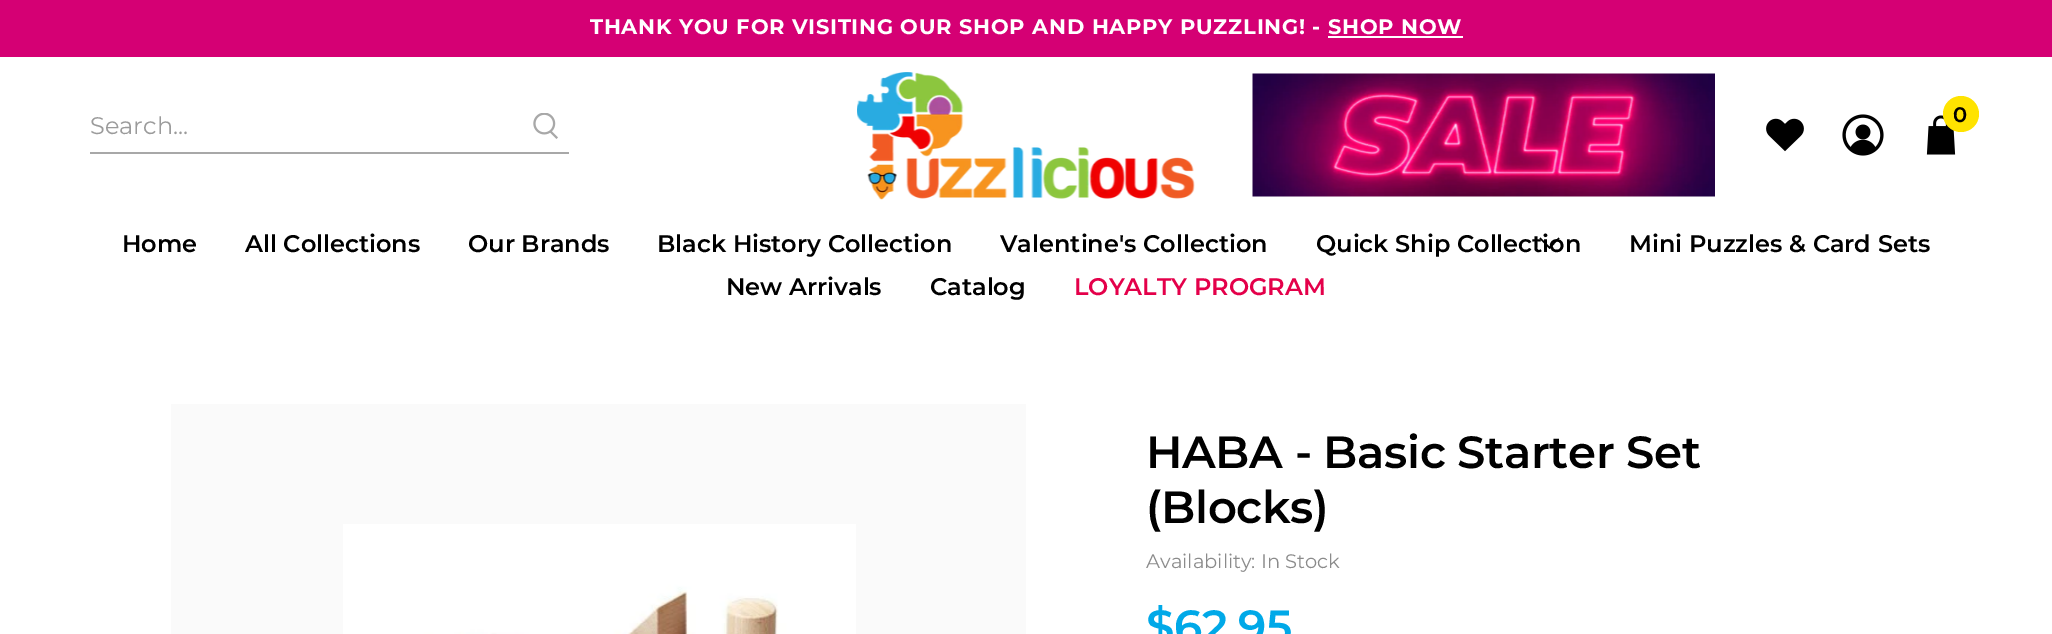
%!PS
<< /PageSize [2052 634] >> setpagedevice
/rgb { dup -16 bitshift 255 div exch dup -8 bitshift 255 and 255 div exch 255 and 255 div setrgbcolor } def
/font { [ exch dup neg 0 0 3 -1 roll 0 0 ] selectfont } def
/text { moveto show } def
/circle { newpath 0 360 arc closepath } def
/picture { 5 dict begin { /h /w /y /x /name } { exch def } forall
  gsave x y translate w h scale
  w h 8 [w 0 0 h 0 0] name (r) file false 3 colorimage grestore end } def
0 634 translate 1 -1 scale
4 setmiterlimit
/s1 { /Montserrat-Regular 24 font 16#9B9B9B rgb } def
/s2 { /Montserrat-SemiBold 21 font 16#000000 rgb } def
/s3 { /Montserrat-SemiBold 24 font 16#000000 rgb } def
/s4 { /Montserrat-SemiBold 24 font 16#E4004A rgb } def
/s5 { /Montserrat-Regular 19.5 font 16#8B8B8B rgb } def
16#FFFFFF rgb
0 0 2052 634 rectfill
16#D50074 rgb
0 0 2052 57 rectfill
/Montserrat-Bold 21 font
16#FFFFFF rgb
590 34 moveto 0.75 0 (THANK YOU FOR VISITING OUR SHOP AND HAPPY PUZZLING! - SHOP NOW) ashow
1328 36 135 2 rectfill
16#A8A8A8 rgb
90 152 479 2 rectfill
s1
(Search...) 90 134 text
(pic1.raw) 533 113 25 26 picture
(pic2.raw) 857 72 338 128 picture
(pic3.raw) 1252 73 463 124 picture
(pic4.raw) 1766 118 38 34 picture
(pic5.raw) 1842 114 42 42 picture
(pic6.raw) 1926 115 30 40 picture
16#FFE300 rgb
1961 114 18 circle fill
s2
(0) 1953 122 text
s3
(Home) 122 252 text
(All Collections) 245 252 text
(Our Brands) 468 252 text
(Black History Collection) 657 252 text
(Valentine's Collection) 1000 252 text
(Quick Ship Collection) 1316 252 text
1549.5 249 moveto 1539.5 238.5 lineto 1540.5 237.5 lineto 1549.5 246.5 lineto 1558.5 237.5 lineto 1559.5 238.5 lineto closepath fill
(Mini Puzzles & Card Sets) 1629 252 text
(New Arrivals) 726 295 text
(Catalog) 930 295 text
s4
(LOYALTY PROGRAM) 1074 295 text
16#FAFAFA rgb
171 404 855 230 rectfill
(pic7.raw) 343 524 513 110 picture
/Montserrat-SemiBold 45 font
16#000000 rgb
1146 468 moveto -0.4 0 (HABA - Basic Starter Set) ashow
1146 523 moveto -0.4 0 (\(Blocks\)) ashow
s5
(Availability: In Stock) 1146 568 text
/Montserrat-SemiBold 45 font
16#00A9E8 rgb
1146 642 moveto -0.4 0 ($62.95) ashow
showpage
